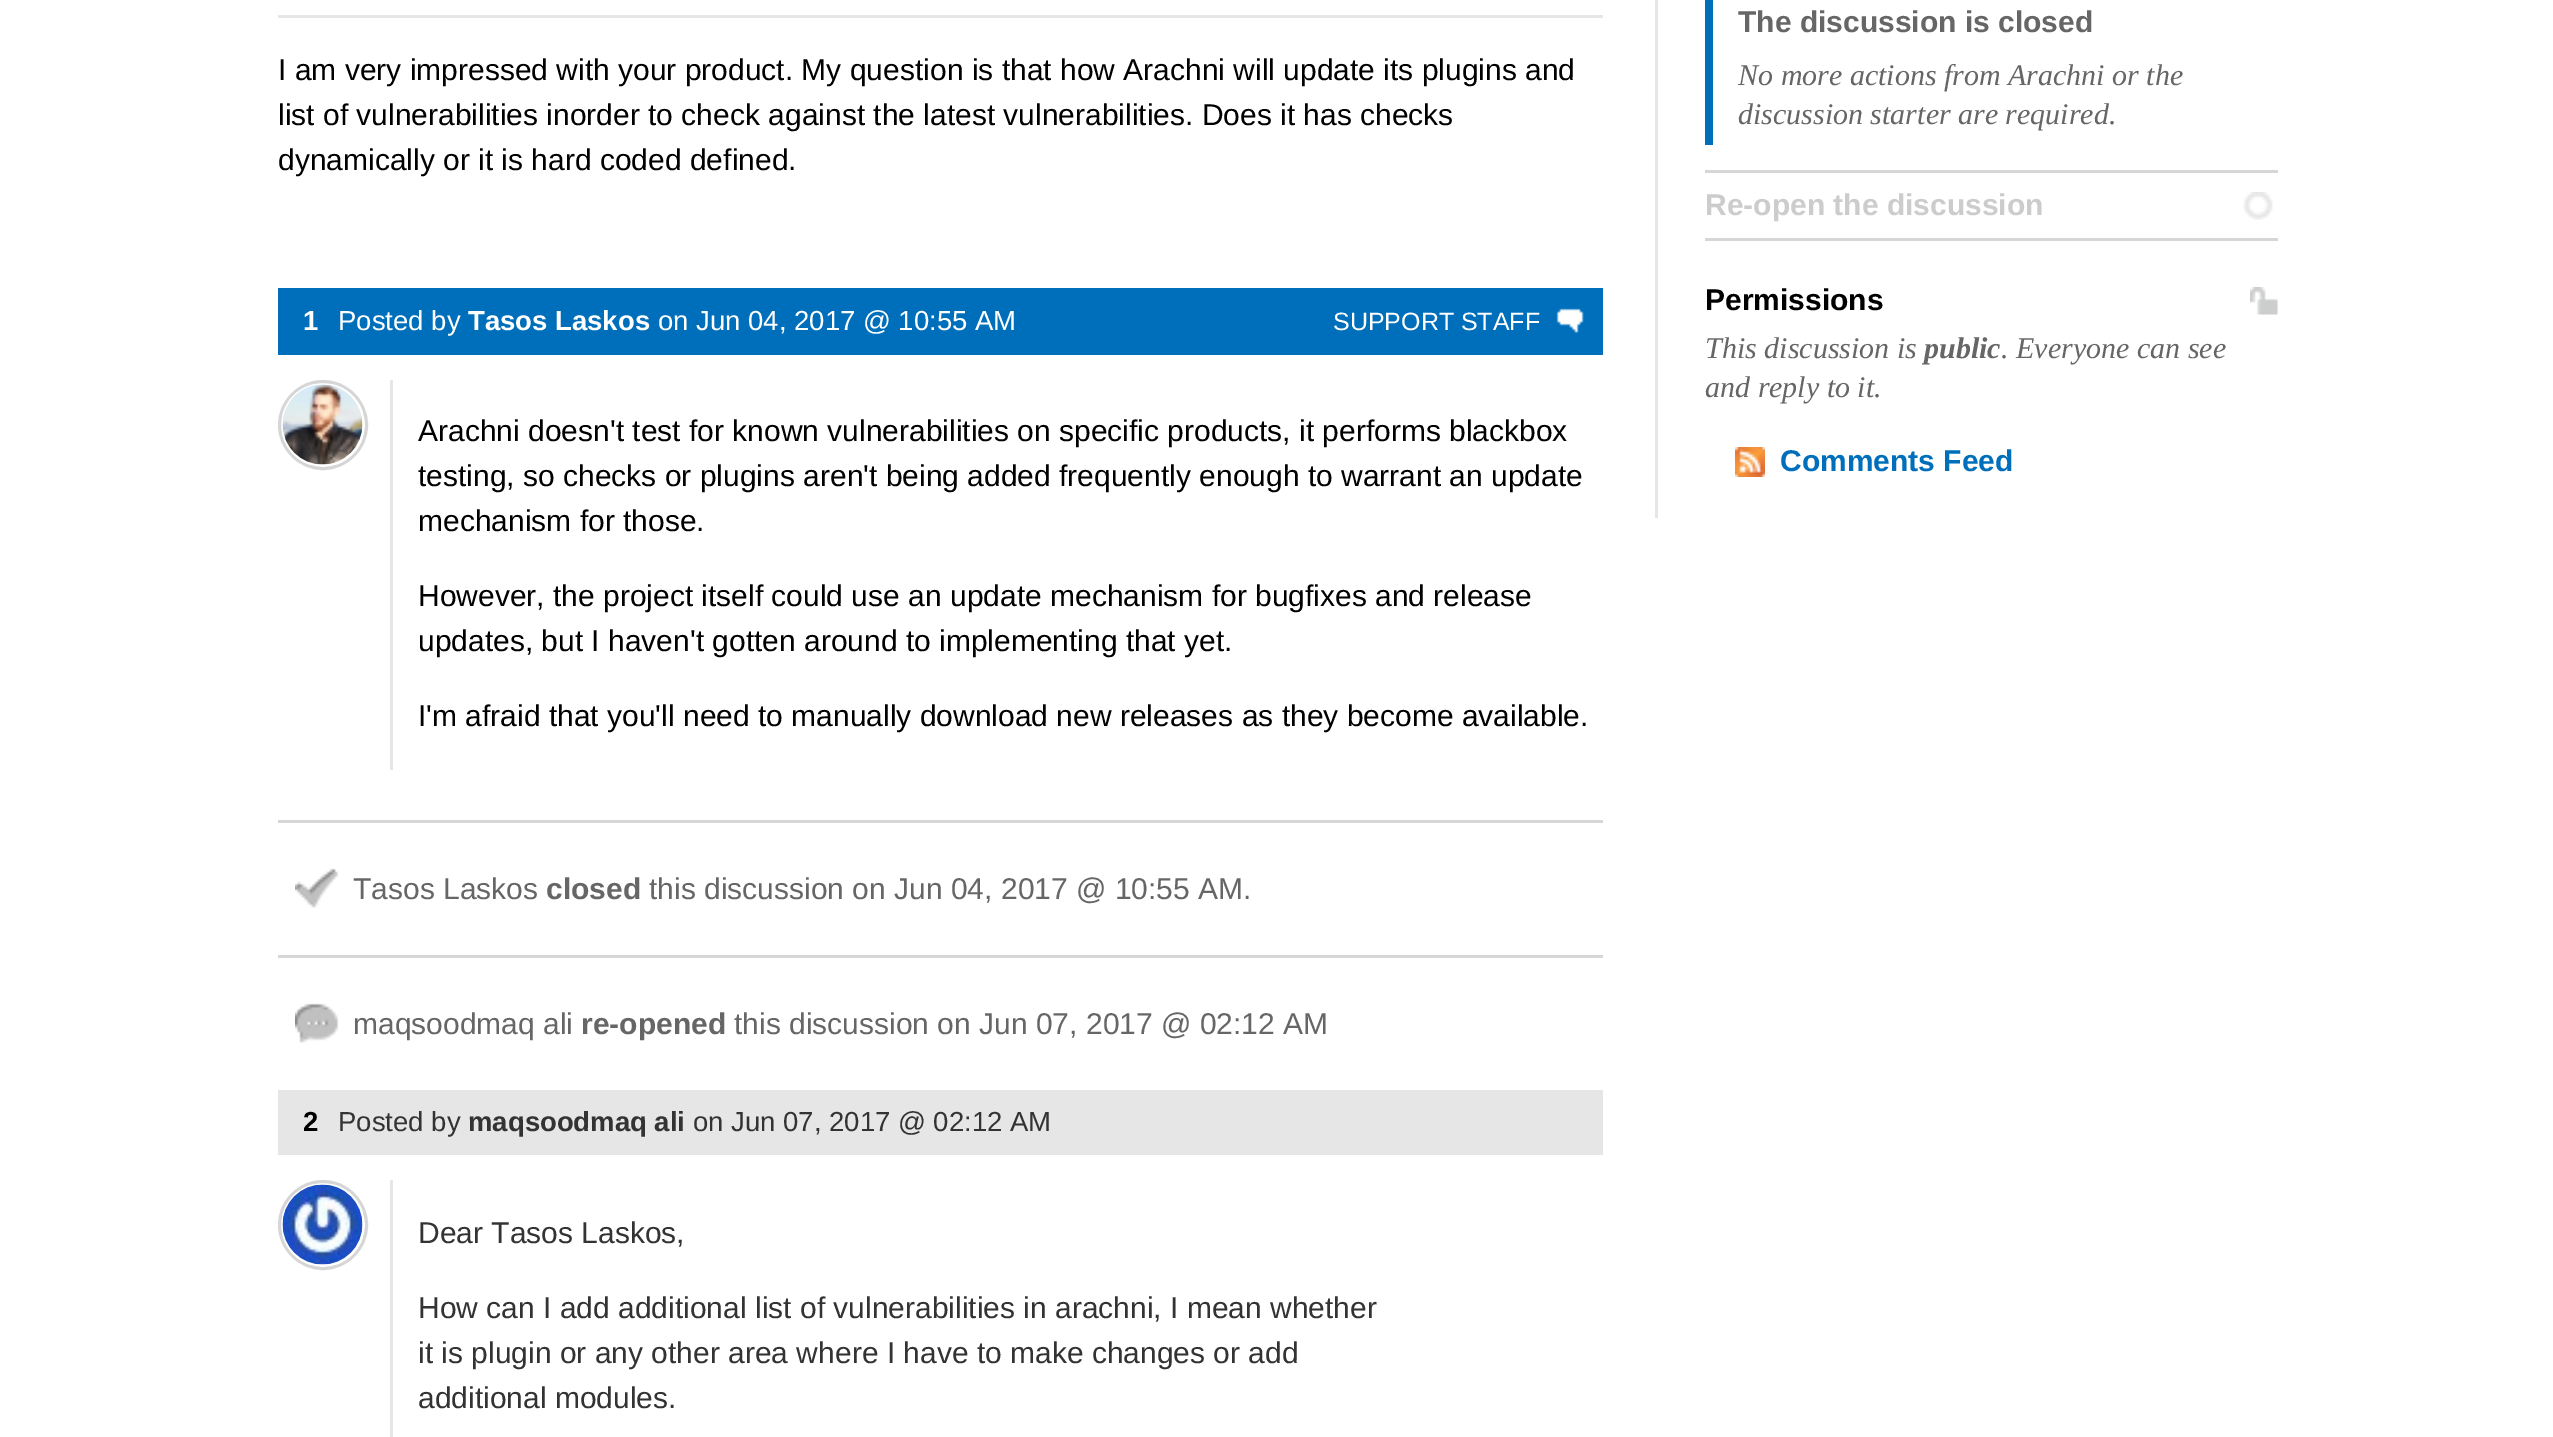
%!PS
<< /PageSize [2553 1437] >> setpagedevice
/rgb { dup -16 bitshift 255 div exch dup -8 bitshift 255 and 255 div exch 255 and 255 div setrgbcolor } def
/font { [ exch dup neg 0 0 3 -1 roll 0 0 ] selectfont } def
/text { moveto show } def
/circle { newpath 0 360 arc closepath } def
/picture { 5 dict begin { /h /w /y /x /name } { exch def } forall
  gsave x y translate w h scale
  w h 8 [w 0 0 h 0 0] name (r) file false 3 colorimage grestore end } def
0 1437 translate 1 -1 scale
4 setmiterlimit
/s1 { /LiberationSans-Regular 30 font 16#000000 rgb } def
/s2 { /LiberationSans-Bold 27.5 font 16#FFFFFF rgb } def
/s3 { /LiberationSans-Regular 27.5 font 16#FFFFFF rgb } def
/s4 { /LiberationSans-Regular 25 font 16#FFFFFF rgb } def
/s5 { /LiberationSans-Regular 30 font 16#666666 rgb } def
/s6 { /LiberationSans-Bold 30 font 16#666666 rgb } def
/s7 { /LiberationSans-Bold 27.5 font 16#000000 rgb } def
/s8 { /LiberationSans-Regular 27.5 font 16#333333 rgb } def
/s9 { /LiberationSans-Bold 27.5 font 16#333333 rgb } def
/s10 { /LiberationSans-Regular 30 font 16#333333 rgb } def
/s11 { /LiberationSerif-Italic 30 font 16#666666 rgb } def
/s12 { /LiberationSans-Bold 30 font 16#CCCCCC rgb } def
/s13 { /LiberationSans-Bold 30 font 16#000000 rgb } def
/s14 { /LiberationSerif-BoldItalic 30 font 16#666666 rgb } def
/s15 { /LiberationSans-Bold 30 font 16#006FBB rgb } def
16#FFFFFF rgb
0 0 2553 1437 rectfill
16#E6E6E6 rgb
278 15 1325 3 rectfill
s1
(I am very impressed with your product. My question is that how Arachni will update its plugins and) 278 80 text
(list of vulnerabilities inorder to check against the latest vulnerabilities. Does it has checks) 278 125 text
(dynamically or it is hard coded defined.) 278 170 text
16#006FBB rgb
278 288 1325 67 rectfill
s2
(1) 303 330 text
s3
(Posted by) 338 330 text
s2
(Tasos Laskos) 468 330 text
s3
(on Jun 04, 2017 @ 10:55 AM) 658 330 text
(pic1.raw) 1556 308 28 25 picture
s4
(SUPPORT STAFF) 1333 330 text
16#D6D6D6 rgb
3 setlinewidth
323 425 43.5 circle stroke
(pic2.raw) 282 384 81 81 picture
16#E6E6E6 rgb
390 380 3 390 rectfill
s1
(Arachni doesn't test for known vulnerabilities on specific products, it performs blackbox) 418 441 text
(testing, so checks or plugins aren't being added frequently enough to warrant an update) 418 486 text
(mechanism for those.) 418 531 text
(However, the project itself could use an update mechanism for bugfixes and release) 418 606 text
(updates, but I haven't gotten around to implementing that yet.) 418 651 text
(I'm afraid that you'll need to manually download new releases as they become available.) 418 726 text
16#D6D6D6 rgb
278 820 1325 3 rectfill
(pic3.raw) 295 868 44 40 picture
s5
(Tasos Laskos) 353 899 text
s6
(closed) 546 899 text
s5
(this discussion on Jun 04, 2017 @ 10:55 AM.) 649 899 text
16#D6D6D6 rgb
278 955 1325 3 rectfill
(pic4.raw) 295 1003 44 40 picture
s5
(maqsoodmaq ali) 353 1034 text
s6
(re-opened) 581 1034 text
s5
(this discussion on Jun 07, 2017 @ 02:12 AM) 734 1034 text
16#E6E6E6 rgb
278 1090 1325 65 rectfill
s7
(2) 303 1131 text
s8
(Posted by) 338 1131 text
s9
(maqsoodmaq ali) 468 1131 text
s8
(on Jun 07, 2017 @ 02:12 AM) 693 1131 text
16#D6D6D6 rgb
323 1225 43.5 circle stroke
(pic5.raw) 282 1184 81 81 picture
16#E6E6E6 rgb
390 1180 3 257 rectfill
s10
(Dear Tasos Laskos,) 418 1243 text
(How can I add additional list of vulnerabilities in arachni, I mean whether) 418 1318 text
(it is plugin or any other area where I have to make changes or add) 418 1363 text
(additional modules.) 418 1408 text
16#E6E6E6 rgb
1655 0 3 518 rectfill
16#006FBB rgb
1705 0 8 145 rectfill
s6
(The discussion is closed) 1738 32 text
s11
(No more actions from Arachni or the) 1738 85 text
(discussion starter are required.) 1738 124 text
(pic6.raw) 2243 192 30 28 picture
16#D6D6D6 rgb
1705 170 573 3 rectfill
1705 238 573 3 rectfill
s12
(Re-open the discussion) 1705 215 text
s13
(Permissions) 1705 310 text
(pic7.raw) 2250 287 28 28 picture
s11
(This discussion is) 1705 358 text
s14
(public) 1924 358 text
s11
(. Everyone can see) 2001 358 text
(and reply to it.) 1705 397 text
(pic8.raw) 1735 447 30 30 picture
s15
(Comments Feed) 1780 471 text
showpage
